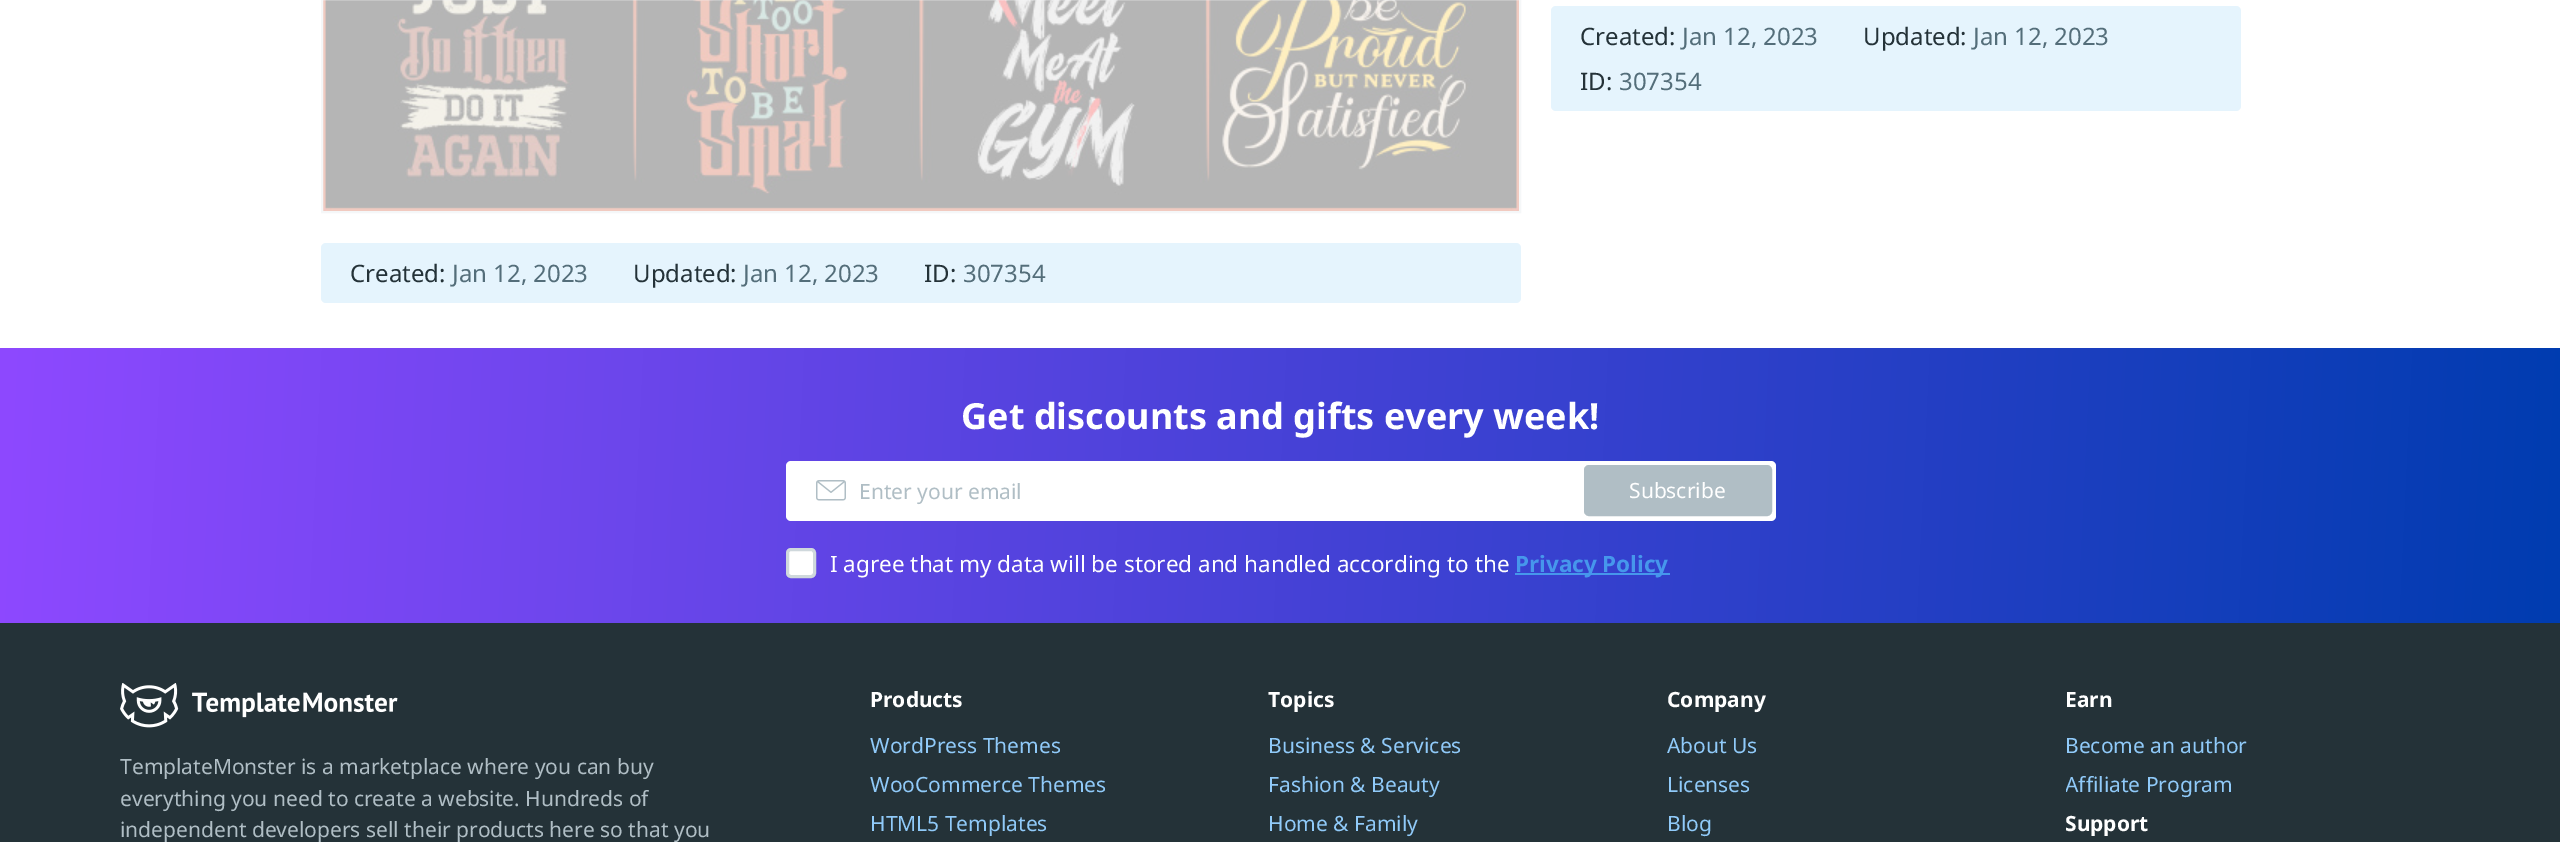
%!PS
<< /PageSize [2560 842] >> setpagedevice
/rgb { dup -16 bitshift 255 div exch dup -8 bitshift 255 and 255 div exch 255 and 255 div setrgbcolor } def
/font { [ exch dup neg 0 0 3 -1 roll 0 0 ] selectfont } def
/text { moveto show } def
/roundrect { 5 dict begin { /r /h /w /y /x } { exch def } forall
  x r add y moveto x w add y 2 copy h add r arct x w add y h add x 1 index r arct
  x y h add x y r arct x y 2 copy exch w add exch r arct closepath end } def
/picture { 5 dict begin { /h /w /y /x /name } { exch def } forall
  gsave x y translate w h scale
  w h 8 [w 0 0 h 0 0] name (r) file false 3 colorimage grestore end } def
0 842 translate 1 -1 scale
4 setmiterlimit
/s1 { /NotoSans-Regular 24 font 16#243238 rgb } def
/s2 { /NotoSans-Regular 24 font 16#546E7A rgb } def
/s3 { /NotoSans-Bold 36 font 16#FFFFFF rgb } def
/s4 { /NotoSans-Regular 21 font 16#B0BEC5 rgb } def
/s5 { /NotoSans-Regular 21 font 16#FFFFFF rgb } def
/s6 { /NotoSans-Regular 22.5 font 16#FFFFFF rgb } def
/s7 { /NotoSans-Bold 22.5 font 16#4697EC rgb } def
/s8 { /NotoSans-Bold 21 font 16#FFFFFF rgb } def
/s9 { /NotoSans-Regular 21 font 16#90CAF9 rgb } def
16#FFFFFF rgb
0 0 2560 842 rectfill
16#E5F4FD rgb
1551 6 690 105 5 roundrect fill
s1
(Created:) 1580 45 text
s2
(Jan 12, 2023) 1682 45 text
s1
(Updated:) 1863 45 text
s2
(Jan 12, 2023) 1973 45 text
s1
(ID:) 1580 90 text
s2
(307354) 1619 90 text
(pic1.raw) 323 0 1196 211 picture
16#F5F7F8 rgb
2 setlinewidth
322 -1 1198 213 rectstroke
16#E5F4FD rgb
321 243 1200 60 5 roundrect fill
s1
(Created:) 350 282 text
s2
(Jan 12, 2023) 452 282 text
s1
(Updated:) 633 282 text
s2
(Jan 12, 2023) 743 282 text
s1
(ID:) 924 282 text
s2
(307354) 963 282 text
gsave 0 348 moveto 2560 348 lineto 2560 623 lineto 0 623 lineto closepath clip newpath
<< /ShadingType 2 /ColorSpace /DeviceRGB /Coords [-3.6 424 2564 546] /Extend [true true] /Function << /FunctionType 2 /Domain [0 1] /C0 [0.557 0.286 1] /C1 [0 0.235 0.69] /N 1 >> >> shfill grestore
s3
(Get discounts and gifts every week!) 961 429 text
786 461 990 60 5 roundrect fill
(pic2.raw) 816 480 30 21 picture
s4
(Enter your email) 859 499 text
1585 466 186 49 4 roundrect gsave fill grestore
stroke
s5
(Subscribe) 1629 498 text
787.5 549.5 27 27 3.5 roundrect gsave fill grestore
16#CFD8DC rgb
3 setlinewidth
stroke
s6
(I agree that my data will be stored and handled according to the) 830 572 text
16#4697EC rgb
1515 573 155 2 rectfill
s7
(Privacy Policy) 1515 572 text
16#243238 rgb
0 623 2560 219 rectfill
(pic3.raw) 120 683 278 45 picture
s4
(TemplateMonster is a marketplace where you can buy) 120 774 text
(everything you need to create a website. Hundreds of) 120 806 text
(independent developers sell their products here so that you) 120 837 text
s8
(Products) 870 707 text
s9
(WordPress Themes) 870 753 text
(WooCommerce Themes) 870 792 text
(HTML5 Templates) 870 831 text
s8
(Topics) 1268 707 text
s9
(Business & Services) 1268 753 text
(Fashion & Beauty) 1268 792 text
(Home & Family) 1268 831 text
s8
(Company) 1667 707 text
s9
(About Us) 1667 753 text
(Licenses) 1667 792 text
(Blog) 1667 831 text
s8
(Earn) 2065 707 text
s9
(Become an author) 2065 753 text
gsave
2066 768 375 39 rectclip
(Affiliate Program) 2065 792 text
grestore
s8
(Support) 2065 831 text
showpage
